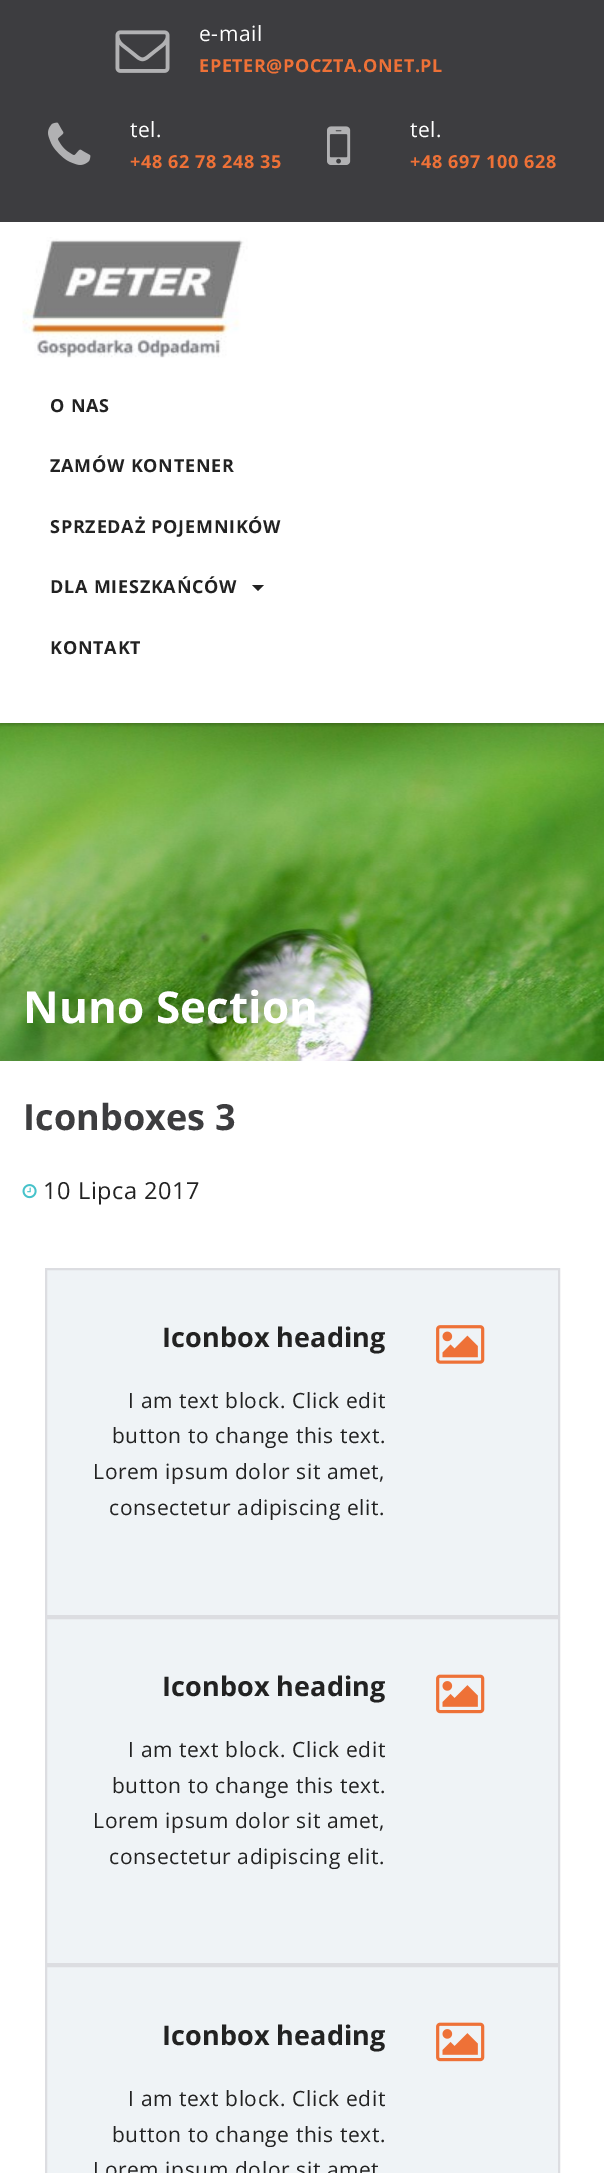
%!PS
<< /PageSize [604 2173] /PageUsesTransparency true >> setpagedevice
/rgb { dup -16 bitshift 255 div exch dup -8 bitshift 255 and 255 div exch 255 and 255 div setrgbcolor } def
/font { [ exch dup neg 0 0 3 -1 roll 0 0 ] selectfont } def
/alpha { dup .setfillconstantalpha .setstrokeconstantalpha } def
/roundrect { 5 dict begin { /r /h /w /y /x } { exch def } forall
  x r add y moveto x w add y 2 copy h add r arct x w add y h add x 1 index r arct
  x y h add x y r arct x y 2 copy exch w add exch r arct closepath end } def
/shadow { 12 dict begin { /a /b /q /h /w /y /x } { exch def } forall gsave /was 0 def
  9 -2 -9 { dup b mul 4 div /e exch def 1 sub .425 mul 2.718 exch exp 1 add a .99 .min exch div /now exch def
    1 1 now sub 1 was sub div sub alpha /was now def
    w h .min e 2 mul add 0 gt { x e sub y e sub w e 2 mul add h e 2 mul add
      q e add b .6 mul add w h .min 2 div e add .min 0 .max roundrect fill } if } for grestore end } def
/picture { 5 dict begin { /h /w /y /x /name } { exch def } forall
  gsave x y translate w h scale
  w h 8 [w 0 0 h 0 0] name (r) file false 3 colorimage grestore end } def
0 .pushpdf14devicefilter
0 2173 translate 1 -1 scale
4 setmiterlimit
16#FFFFFF rgb
0 0 604 2173 rectfill
(pic5.raw) 0 723 604 338 picture
gsave
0 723 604 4 rectclip
16#000000 rgb
0 224 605 501 0 1.5 0.2 shadow
grestore
16#3D3D40 rgb
0 0 604 222 rectfill
(pic1.raw) 115 30 55 43 picture
/OpenSans-Regular 21 font
16#FFFFFF rgb
199 41 moveto 0.6 0 (e-mail) ashow
/OpenSans-Bold 18 font
16#EE7137 rgb
199 72 moveto 0.6 0 (EPETER@POCZTA.ONET.PL) ashow
(pic2.raw) 48 122 43 43 picture
/OpenSans-Regular 21 font
16#FFFFFF rgb
130 137 moveto 0.6 0 (tel.) ashow
/OpenSans-Bold 18 font
16#EE7137 rgb
130 168 moveto 0.6 0 (+48 62 78 248 35) ashow
(pic3.raw) 327 126 24 39 picture
/OpenSans-Regular 21 font
16#FFFFFF rgb
410 137 moveto 0.6 0 (tel.) ashow
/OpenSans-Bold 18 font
16#EE7137 rgb
410 168 moveto 0.6 0 (+48 697 100 628) ashow
(pic4.raw) 22 237 226 121 picture
16#222222 rgb
50 412 moveto 0.75 0 (O NAS) ashow
50 472 moveto 0.75 0 (ZAMÓW KONTENER) ashow
50 533 moveto 0.75 0 (SPRZEDAŻ POJEMNIKÓW) ashow
50 593 moveto 0.75 0 (DLA MIESZKAŃCÓW) ashow
252 585 moveto 264 585 lineto 258 591 lineto closepath fill
50 654 moveto 0.75 0 (KONTAKT) ashow
/OpenSans-Bold 44 font
16#FFFFFF rgb
23 1023 moveto 0.1 0 (Nuno Section) ashow
/OpenSans-Bold 36 font
16#3D3D3F rgb
23 1130 moveto 0.1 0 (Iconboxes 3) ashow
(pic6.raw) 22 1184 15 15 picture
/OpenSans-Regular 23.5 font
16#222222 rgb
43 1199 moveto 0.6 0 (10 Lipca 2017) ashow
16#EFF3F6 rgb
46 1269 moveto 559 1269 lineto 559 1616 lineto 46 1616 lineto closepath gsave fill grestore
16#DCDDE1 rgb
2 setlinewidth
stroke
/OpenSans-Bold 27 font
16#222222 rgb
162 1347 moveto 0.1 0 (Iconbox heading) ashow
/OpenSans-Regular 21 font
128 1408 moveto 0.6 0 (I am text block. Click edit) ashow
112 1443 moveto 0.6 0 (button to change this text.) ashow
93 1479 moveto 0.6 0 (Lorem ipsum dolor sit amet,) ashow
109 1515 moveto 0.6 0 (consectetur adipiscing elit.) ashow
(pic7.raw) 436 1325 49 39 picture
16#EFF3F6 rgb
46 1618 moveto 559 1618 lineto 559 1964 lineto 46 1964 lineto closepath gsave fill grestore
16#DCDDE1 rgb
stroke
/OpenSans-Bold 27 font
16#222222 rgb
162 1696 moveto 0.1 0 (Iconbox heading) ashow
/OpenSans-Regular 21 font
128 1757 moveto 0.6 0 (I am text block. Click edit) ashow
112 1793 moveto 0.6 0 (button to change this text.) ashow
93 1828 moveto 0.6 0 (Lorem ipsum dolor sit amet,) ashow
109 1864 moveto 0.6 0 (consectetur adipiscing elit.) ashow
(pic8.raw) 436 1674 49 40 picture
16#EFF3F6 rgb
46 1966 moveto 559 1966 lineto 559 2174 lineto 46 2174 lineto closepath gsave fill grestore
16#DCDDE1 rgb
stroke
/OpenSans-Bold 27 font
16#222222 rgb
162 2045 moveto 0.1 0 (Iconbox heading) ashow
/OpenSans-Regular 21 font
128 2106 moveto 0.6 0 (I am text block. Click edit) ashow
112 2142 moveto 0.6 0 (button to change this text.) ashow
93 2177 moveto 0.6 0 (Lorem ipsum dolor sit amet) ashow
(pic8.raw) 436 2022 49 40 picture
.poppdf14devicefilter showpage
